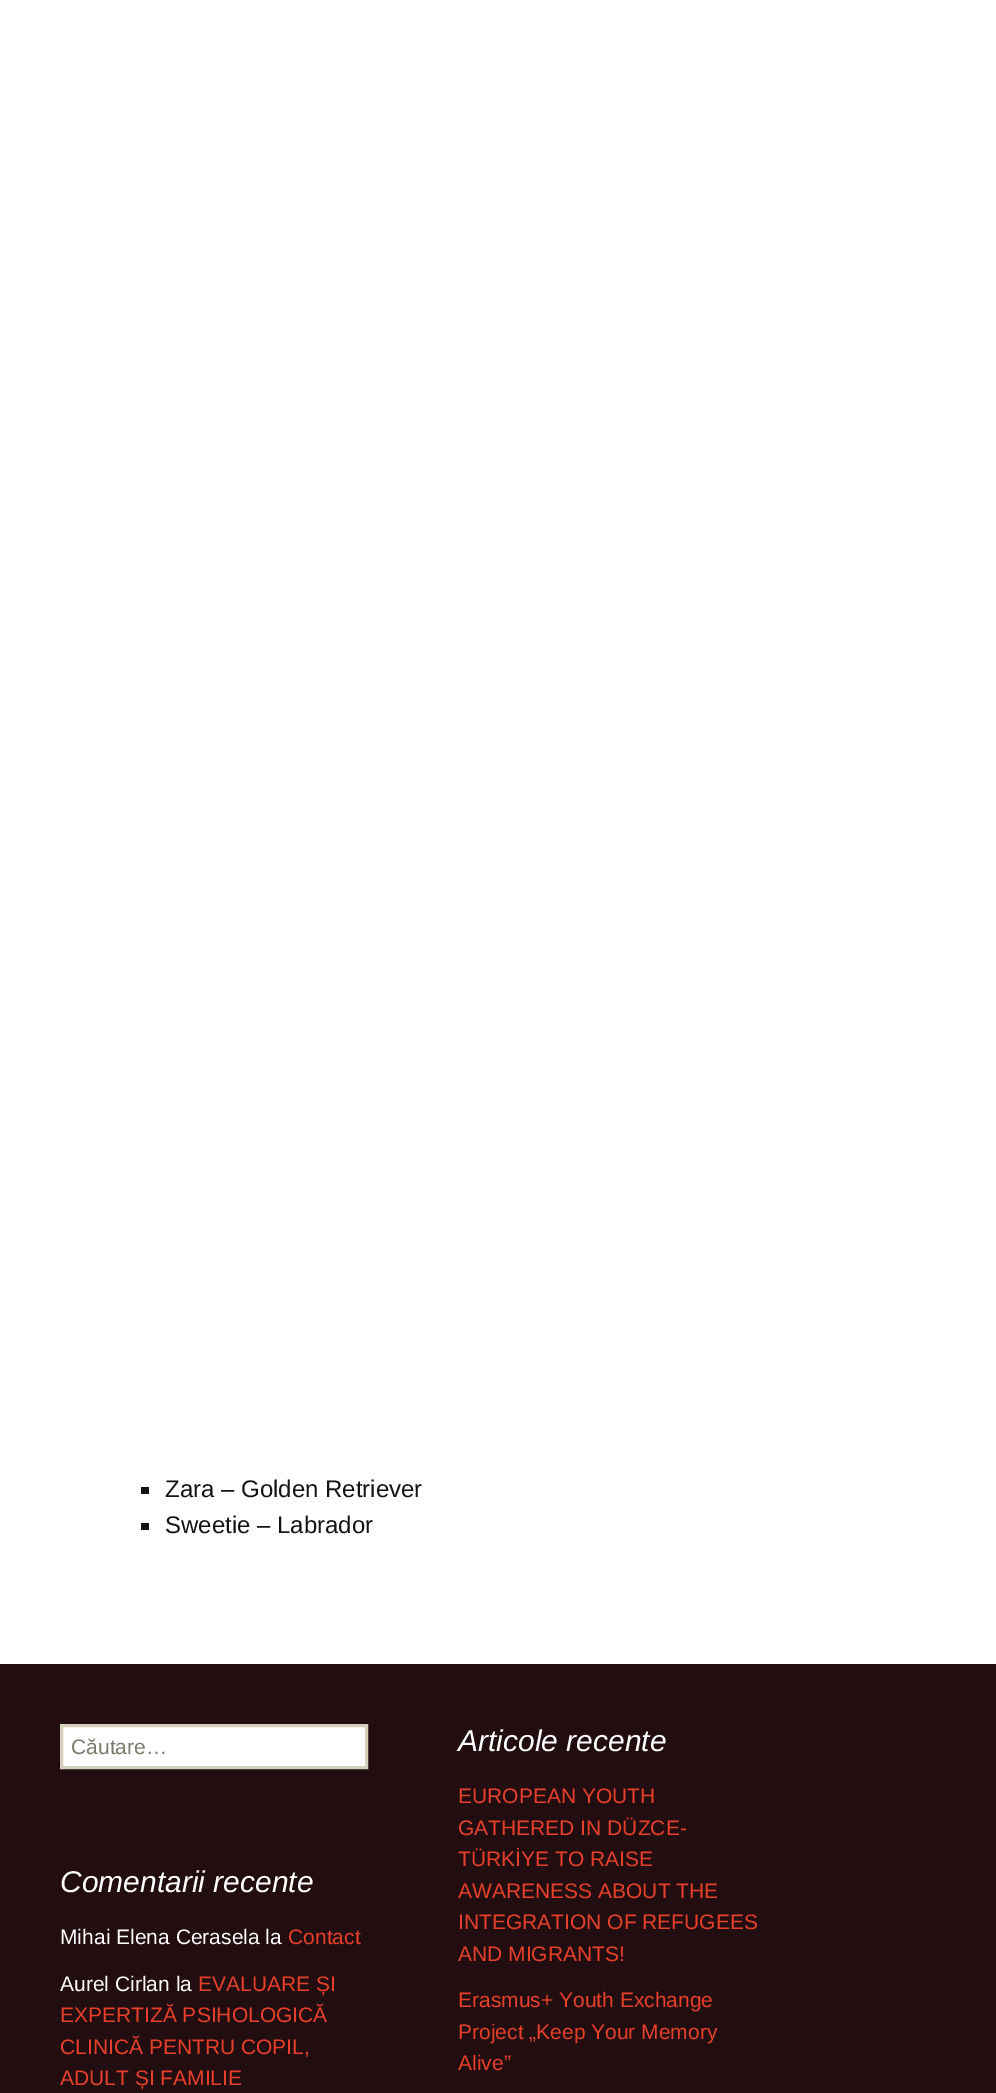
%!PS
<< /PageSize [996 2093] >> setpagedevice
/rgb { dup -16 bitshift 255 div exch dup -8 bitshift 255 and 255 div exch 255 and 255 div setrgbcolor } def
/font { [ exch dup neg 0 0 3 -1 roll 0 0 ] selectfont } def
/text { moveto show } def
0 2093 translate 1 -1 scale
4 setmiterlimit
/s1 { /LiberationSans-Regular 24 font 16#141412 rgb } def
/s2 { /LiberationSans-Regular 21 font 16#7D7B6D rgb } def
/s3 { /LiberationSans-Italic 30 font 16#FFFFFF rgb } def
/s4 { /LiberationSans-Regular 21 font 16#E6402A rgb } def
/s5 { /LiberationSans-Regular 21 font 16#FFFFFF rgb } def
16#FFFFFF rgb
0 0 996 2093 rectfill
16#141412 rgb
141 1487 8 7 rectfill
s1
(Zara – Golden Retriever) 165 1497 text
141 1523 8 7 rectfill
(Sweetie – Labrador) 165 1533 text
16#220E10 rgb
0 1664 996 429 rectfill
16#FFFFFF rgb
61.5 1725.5 moveto 366.5 1725.5 lineto 366.5 1767.5 lineto 61.5 1767.5 lineto closepath gsave fill grestore
16#D4D0BA rgb
3 setlinewidth
stroke
s2
(Căutare…) 71 1754 text
s3
(Articole recente) 458 1751 text
s4
(EUROPEAN YOUTH) 458 1803 text
(GATHERED IN DÜZCE-) 458 1835 text
(TÜRKİYE TO RAISE) 458 1866 text
(AWARENESS ABOUT THE) 458 1898 text
(INTEGRATION OF REFUGEES) 458 1929 text
(AND MIGRANTS!) 458 1961 text
(Erasmus+ Youth Exchange) 458 2007 text
(Project „Keep Your Memory) 458 2039 text
(Alive”) 458 2070 text
s3
(Comentarii recente) 60 1892 text
s5
(Mihai Elena Cerasela la) 60 1944 text
s4
(Contact) 288 1944 text
s5
(Aurel Cirlan la) 60 1991 text
s4
(EVALUARE ȘI) 198 1991 text
(EXPERTIZĂ PSIHOLOGICĂ) 60 2022 text
(CLINICĂ PENTRU COPIL,) 60 2054 text
(ADULT ȘI FAMILIE) 60 2085 text
showpage
